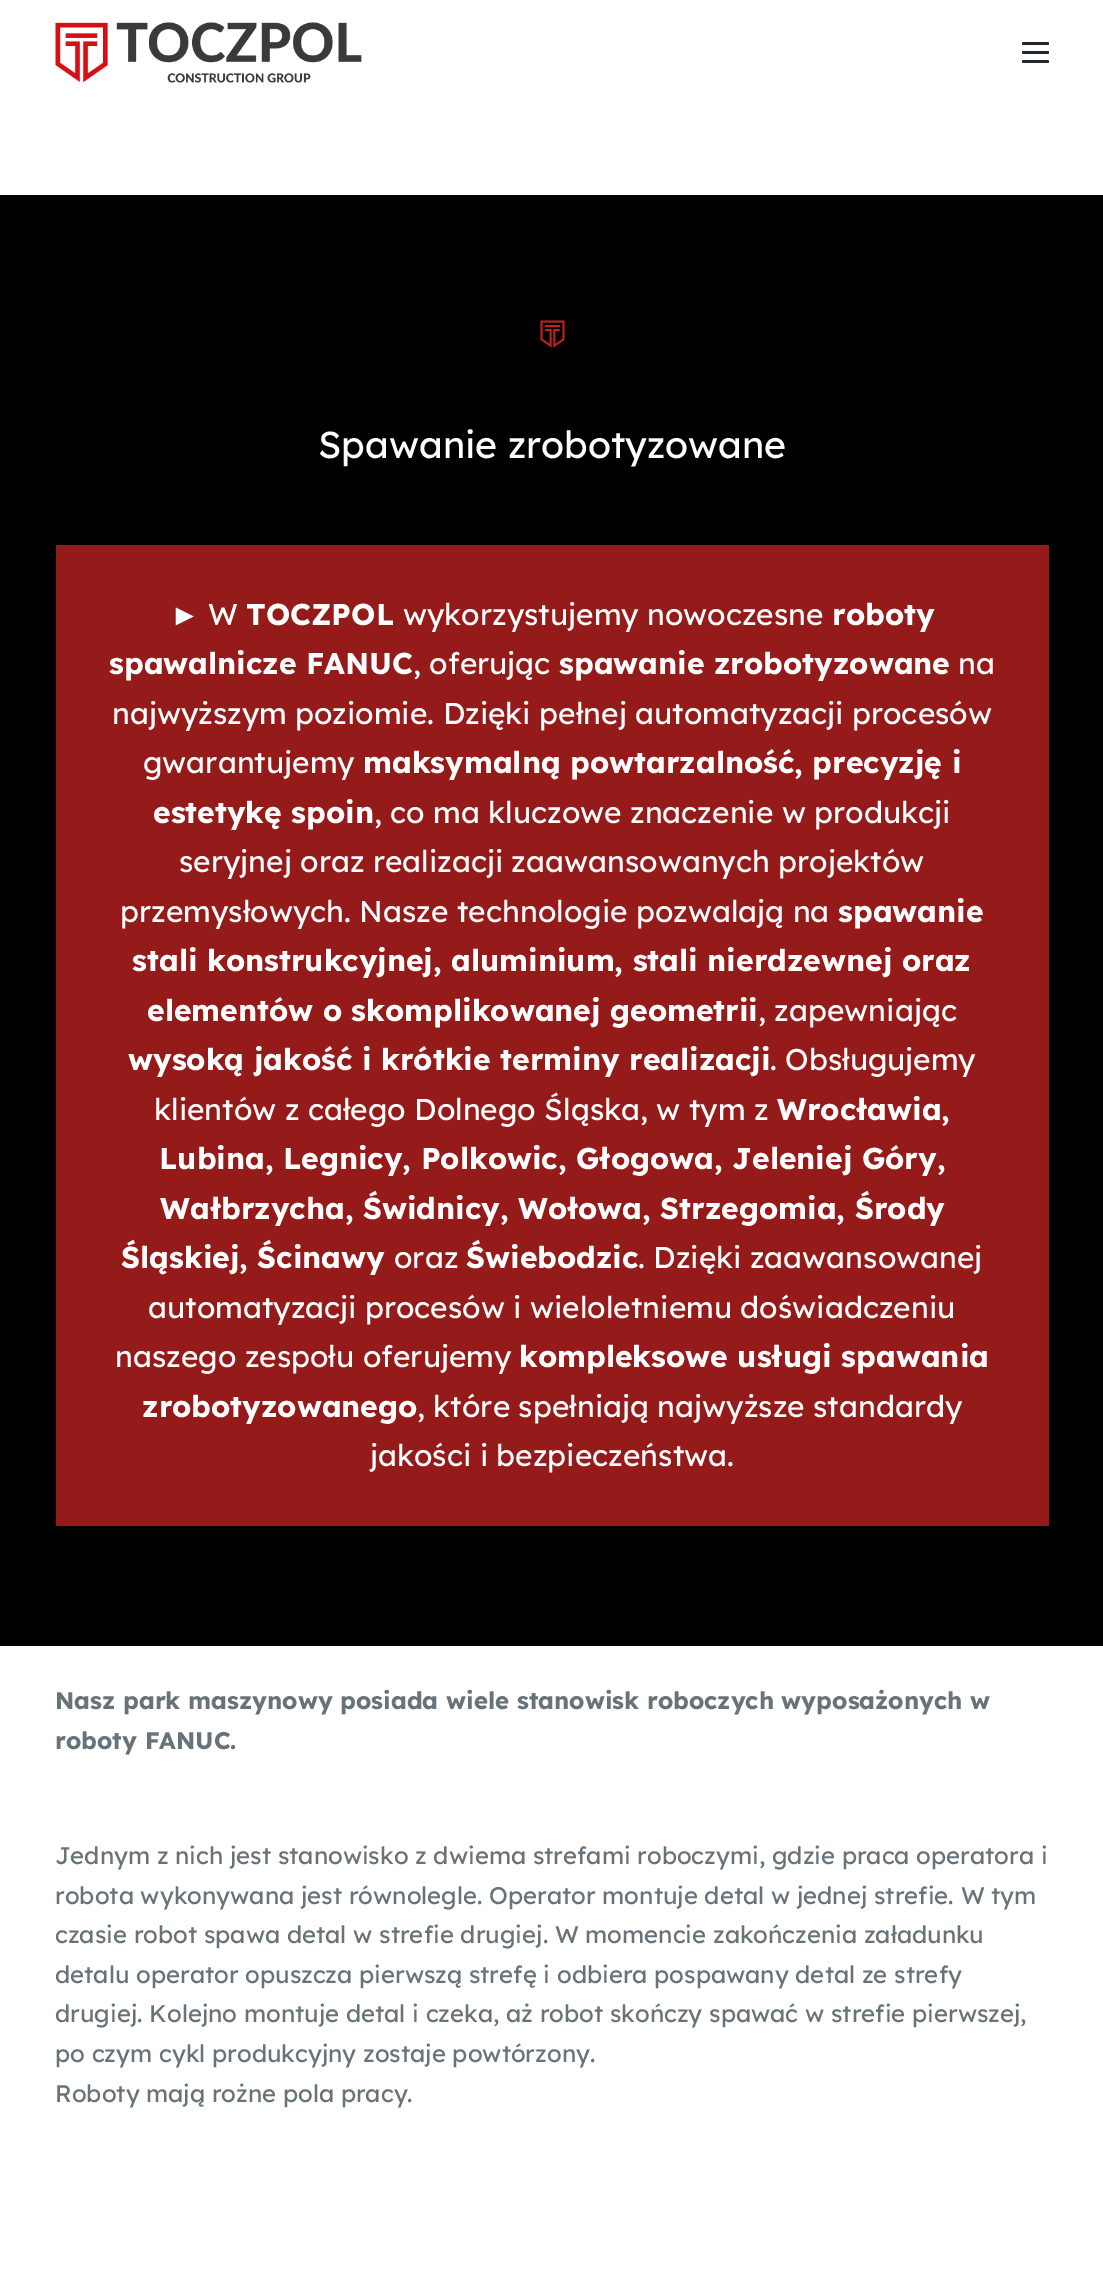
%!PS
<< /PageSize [1103 2279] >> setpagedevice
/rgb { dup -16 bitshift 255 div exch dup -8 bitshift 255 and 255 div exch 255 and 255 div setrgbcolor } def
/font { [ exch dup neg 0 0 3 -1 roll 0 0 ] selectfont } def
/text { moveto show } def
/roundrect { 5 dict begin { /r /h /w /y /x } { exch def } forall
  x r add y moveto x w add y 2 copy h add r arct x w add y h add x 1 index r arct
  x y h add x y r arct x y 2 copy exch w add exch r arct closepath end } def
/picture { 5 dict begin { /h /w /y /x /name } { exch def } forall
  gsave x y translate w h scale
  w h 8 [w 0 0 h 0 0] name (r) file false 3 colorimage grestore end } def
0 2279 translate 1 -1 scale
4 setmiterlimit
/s1 { /Lexend-Regular 37.5 font 16#FFFFFF rgb } def
/s2 { /LiberationSans-Regular 30 font 16#FFFFFF rgb } def
/s3 { /Lexend-Regular 30 font 16#FFFFFF rgb } def
/s4 { /Lexend-Bold 30 font 16#FFFFFF rgb } def
/s5 { /Lexend-Bold 24 font 16#687279 rgb } def
/s6 { /Lexend-Regular 24 font 16#687279 rgb } def
16#FFFFFF rgb
0 0 1103 2279 rectfill
(pic1.raw) 55 22 307 61 picture
16#1E262E rgb
1022 42 27 3 1.5 roundrect fill
1022 51 27 3 1.5 roundrect fill
1022 60 27 3 1.5 roundrect fill
16#000000 rgb
0 195 1103 1451 rectfill
(pic2.raw) 540 320 25 28 picture
s1
(Spawanie zrobotyzowane) 318 458 text
16#951A1A rgb
56 545 993 981 rectfill
s2
(►) 170 625 text
s3
(W) 208 625 text
s4
(TOCZPOL) 246 625 text
s3
(wykorzystujemy nowoczesne) 403 625 text
s4
(roboty) 832 625 text
(spawalnicze FANUC) 109 674 text
s3
(, oferując) 413 674 text
s4
(spawanie zrobotyzowane) 559 674 text
s3
(na) 958 674 text
(najwyższym poziomie. Dzięki pełnej automatyzacji procesów) 112 724 text
(gwarantujemy) 143 773 text
s4
(maksymalną powtarzalność, precyzję i) 363 773 text
(estetykę spoin) 153 823 text
s3
(, co ma kluczowe znaczenie w produkcji) 374 823 text
(seryjnej oraz realizacji zaawansowanych projektów) 179 872 text
(przemysłowych. Nasze technologie pozwalają na) 120 922 text
s4
(spawanie) 838 922 text
(stali konstrukcyjnej, aluminium, stali nierdzewnej oraz) 132 971 text
(elementów o skomplikowanej geometrii) 147 1021 text
s3
(, zapewniając) 758 1021 text
s4
(wysoką jakość i krótkie terminy realizacji) 128 1070 text
s3
(. Obsługujemy) 770 1070 text
(klientów z całego Dolnego Śląska, w tym z) 154 1120 text
s4
(Wrocławia,) 777 1120 text
(Lubina, Legnicy, Polkowic, Głogowa, Jeleniej Góry,) 159 1169 text
(Wałbrzycha, Świdnicy, Wołowa, Strzegomia, Środy) 160 1219 text
(Śląskiej, Ścinawy) 121 1268 text
s3
(oraz) 394 1268 text
s4
(Świebodzic) 466 1268 text
s3
(. Dzięki zaawansowanej) 638 1268 text
(automatyzacji procesów i wieloletniemu doświadczeniu) 148 1318 text
(naszego zespołu oferujemy) 115 1367 text
s4
(kompleksowe usługi spawania) 519 1367 text
(zrobotyzowanego) 142 1417 text
s3
(, które spełniają najwyższe standardy) 417 1417 text
(jakości i bezpieczeństwa.) 370 1466 text
s5
(Nasz park maszynowy posiada wiele stanowisk roboczych wyposażonych w) 55 1709 text
(roboty FANUC.) 55 1749 text
s6
(Jednym z nich jest stanowisko z dwiema strefami roboczymi, gdzie praca operatora i) 55 1864 text
(robota wykonywana jest równolegle. Operator montuje detal w jednej strefie. W tym) 55 1904 text
(czasie robot spawa detal w strefie drugiej. W momencie zakończenia załadunku) 55 1943 text
(detalu operator opuszcza pierwszą strefę i odbiera pospawany detal ze strefy) 55 1983 text
(drugiej. Kolejno montuje detal i czeka, aż robot skończy spawać w strefie pierwszej,) 55 2022 text
(po czym cykl produkcyjny zostaje powtórzony.) 55 2062 text
(Roboty mają rożne pola pracy.) 55 2102 text
showpage
